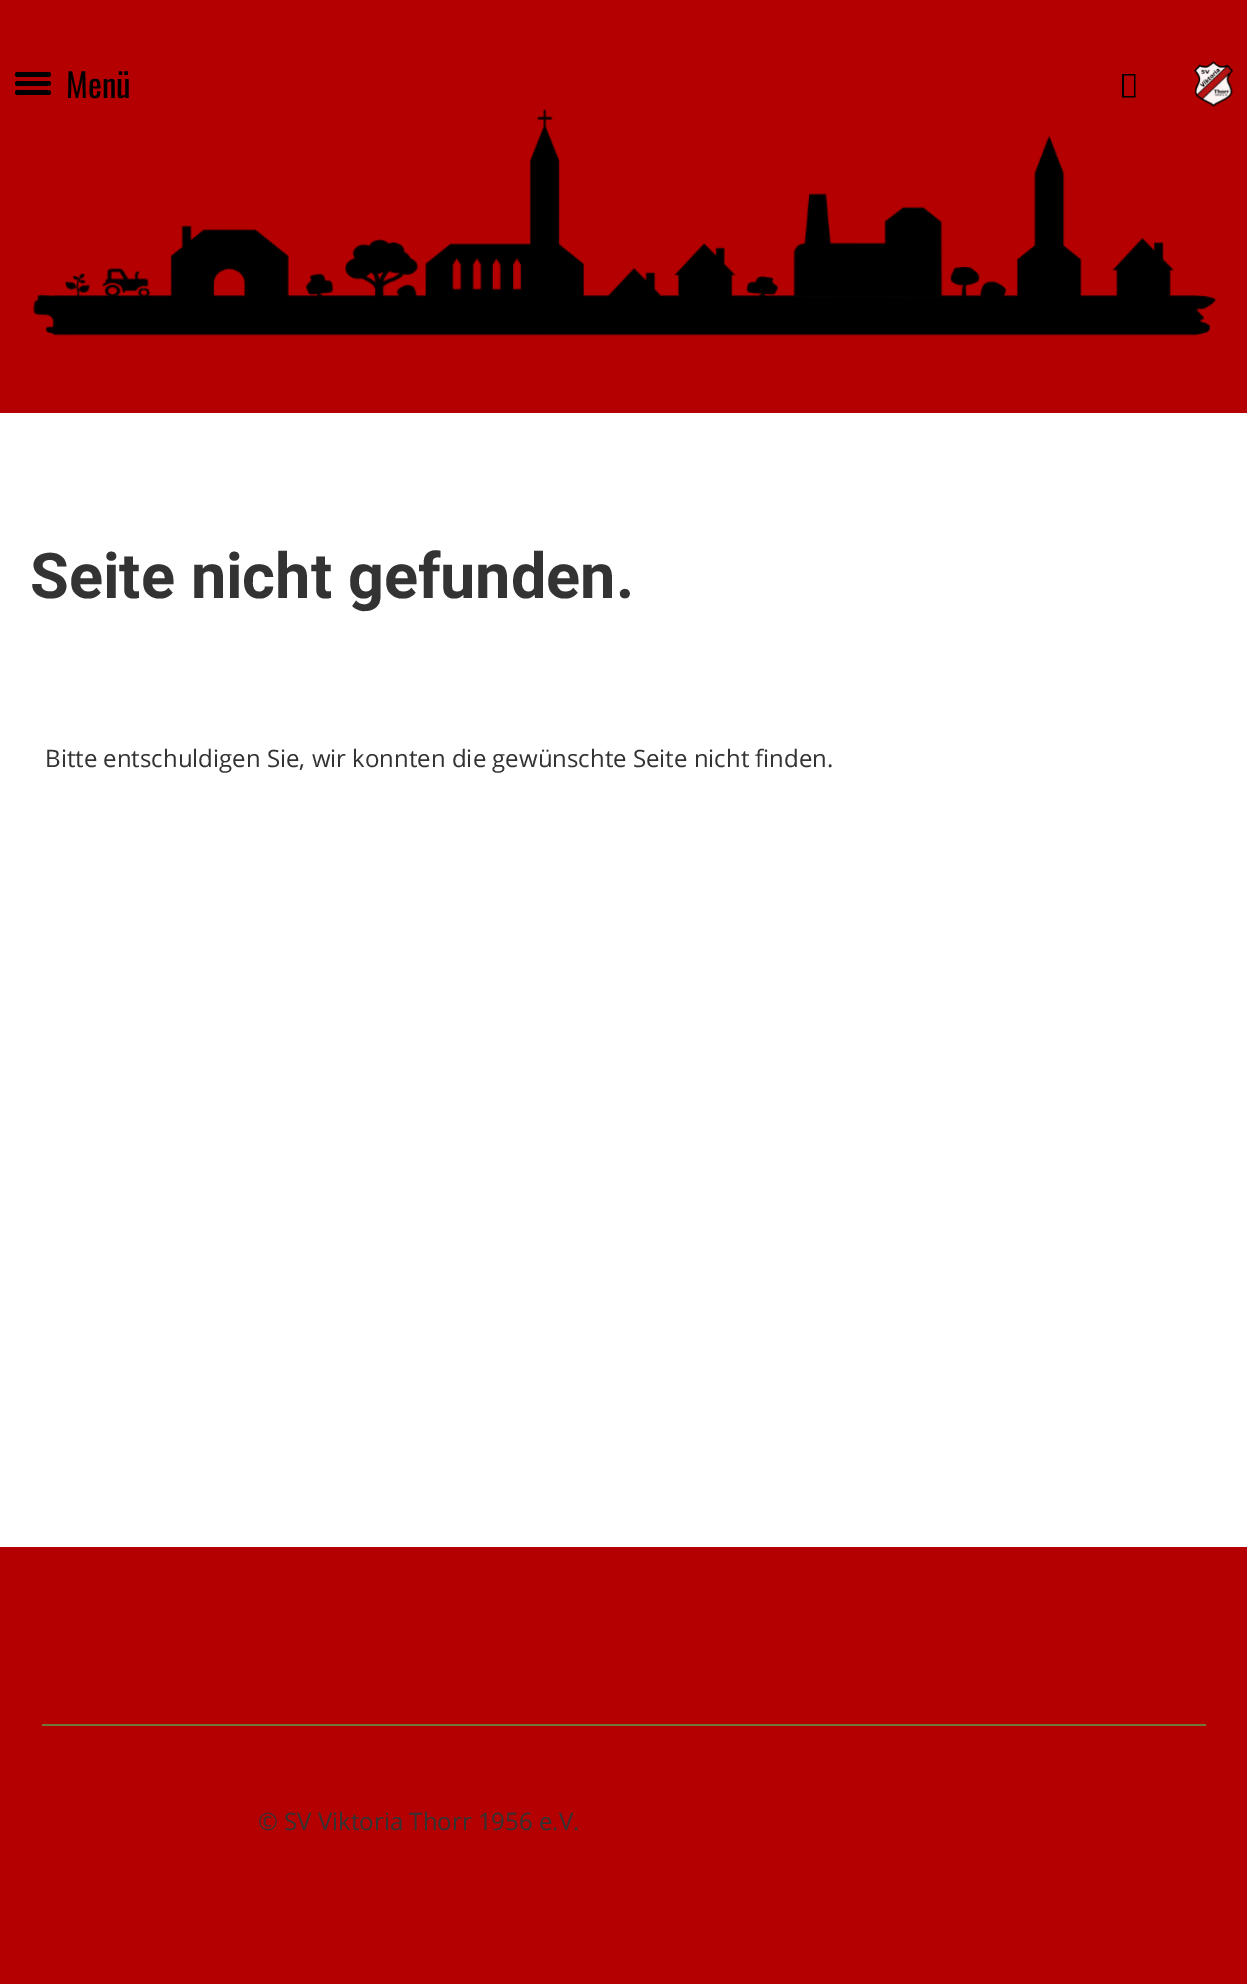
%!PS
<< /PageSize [1247 1984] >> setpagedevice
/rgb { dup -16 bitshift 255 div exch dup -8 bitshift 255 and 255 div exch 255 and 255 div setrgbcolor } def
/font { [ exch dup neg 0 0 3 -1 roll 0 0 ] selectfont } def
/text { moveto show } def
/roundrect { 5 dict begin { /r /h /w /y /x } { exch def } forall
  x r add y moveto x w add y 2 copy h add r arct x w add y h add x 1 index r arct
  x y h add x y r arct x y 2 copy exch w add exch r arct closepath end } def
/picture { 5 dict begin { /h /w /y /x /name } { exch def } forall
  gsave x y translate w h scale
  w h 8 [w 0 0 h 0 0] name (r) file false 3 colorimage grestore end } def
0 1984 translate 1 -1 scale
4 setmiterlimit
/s1 { /Oswald-Regular 33 font 16#000000 rgb } def
/s2 { /Roboto-Bold 63 font 16#333333 rgb } def
/s3 { /OpenSans-Regular 24 font 16#333333 rgb } def
16#FFFFFF rgb
0 0 1247 1984 rectfill
16#B40000 rgb
0 0 1247 413 rectfill
16#000000 rgb
15 72 36 5 2.5 roundrect fill
15 81 36 5 2.5 roundrect fill
15 90 36 5 2.5 roundrect fill
s1
(Menü) 66 98 text
1122 97.5 moveto 1122 74 lineto 1135.5 74 lineto 1135.5 97.5 lineto closepath 1124 96 moveto 1134 96 lineto 1134 75.5 lineto 1124 75.5 lineto closepath fill
(pic1.raw) 1194 61 39 46 picture
(pic2.raw) 33 109 1183 227 picture
s2
(Seite nicht gefunden.) 30 598 text
s3
(Bitte entschuldigen Sie, wir konnten die gewünschte Seite nicht finden.) 45 767 text
16#B40000 rgb
0 1547 1247 437 rectfill
16#707A35 rgb
42 1724 1164 2 rectfill
s3
(© SV Viktoria Thorr 1956 e.V.) 258 1830 text
showpage
